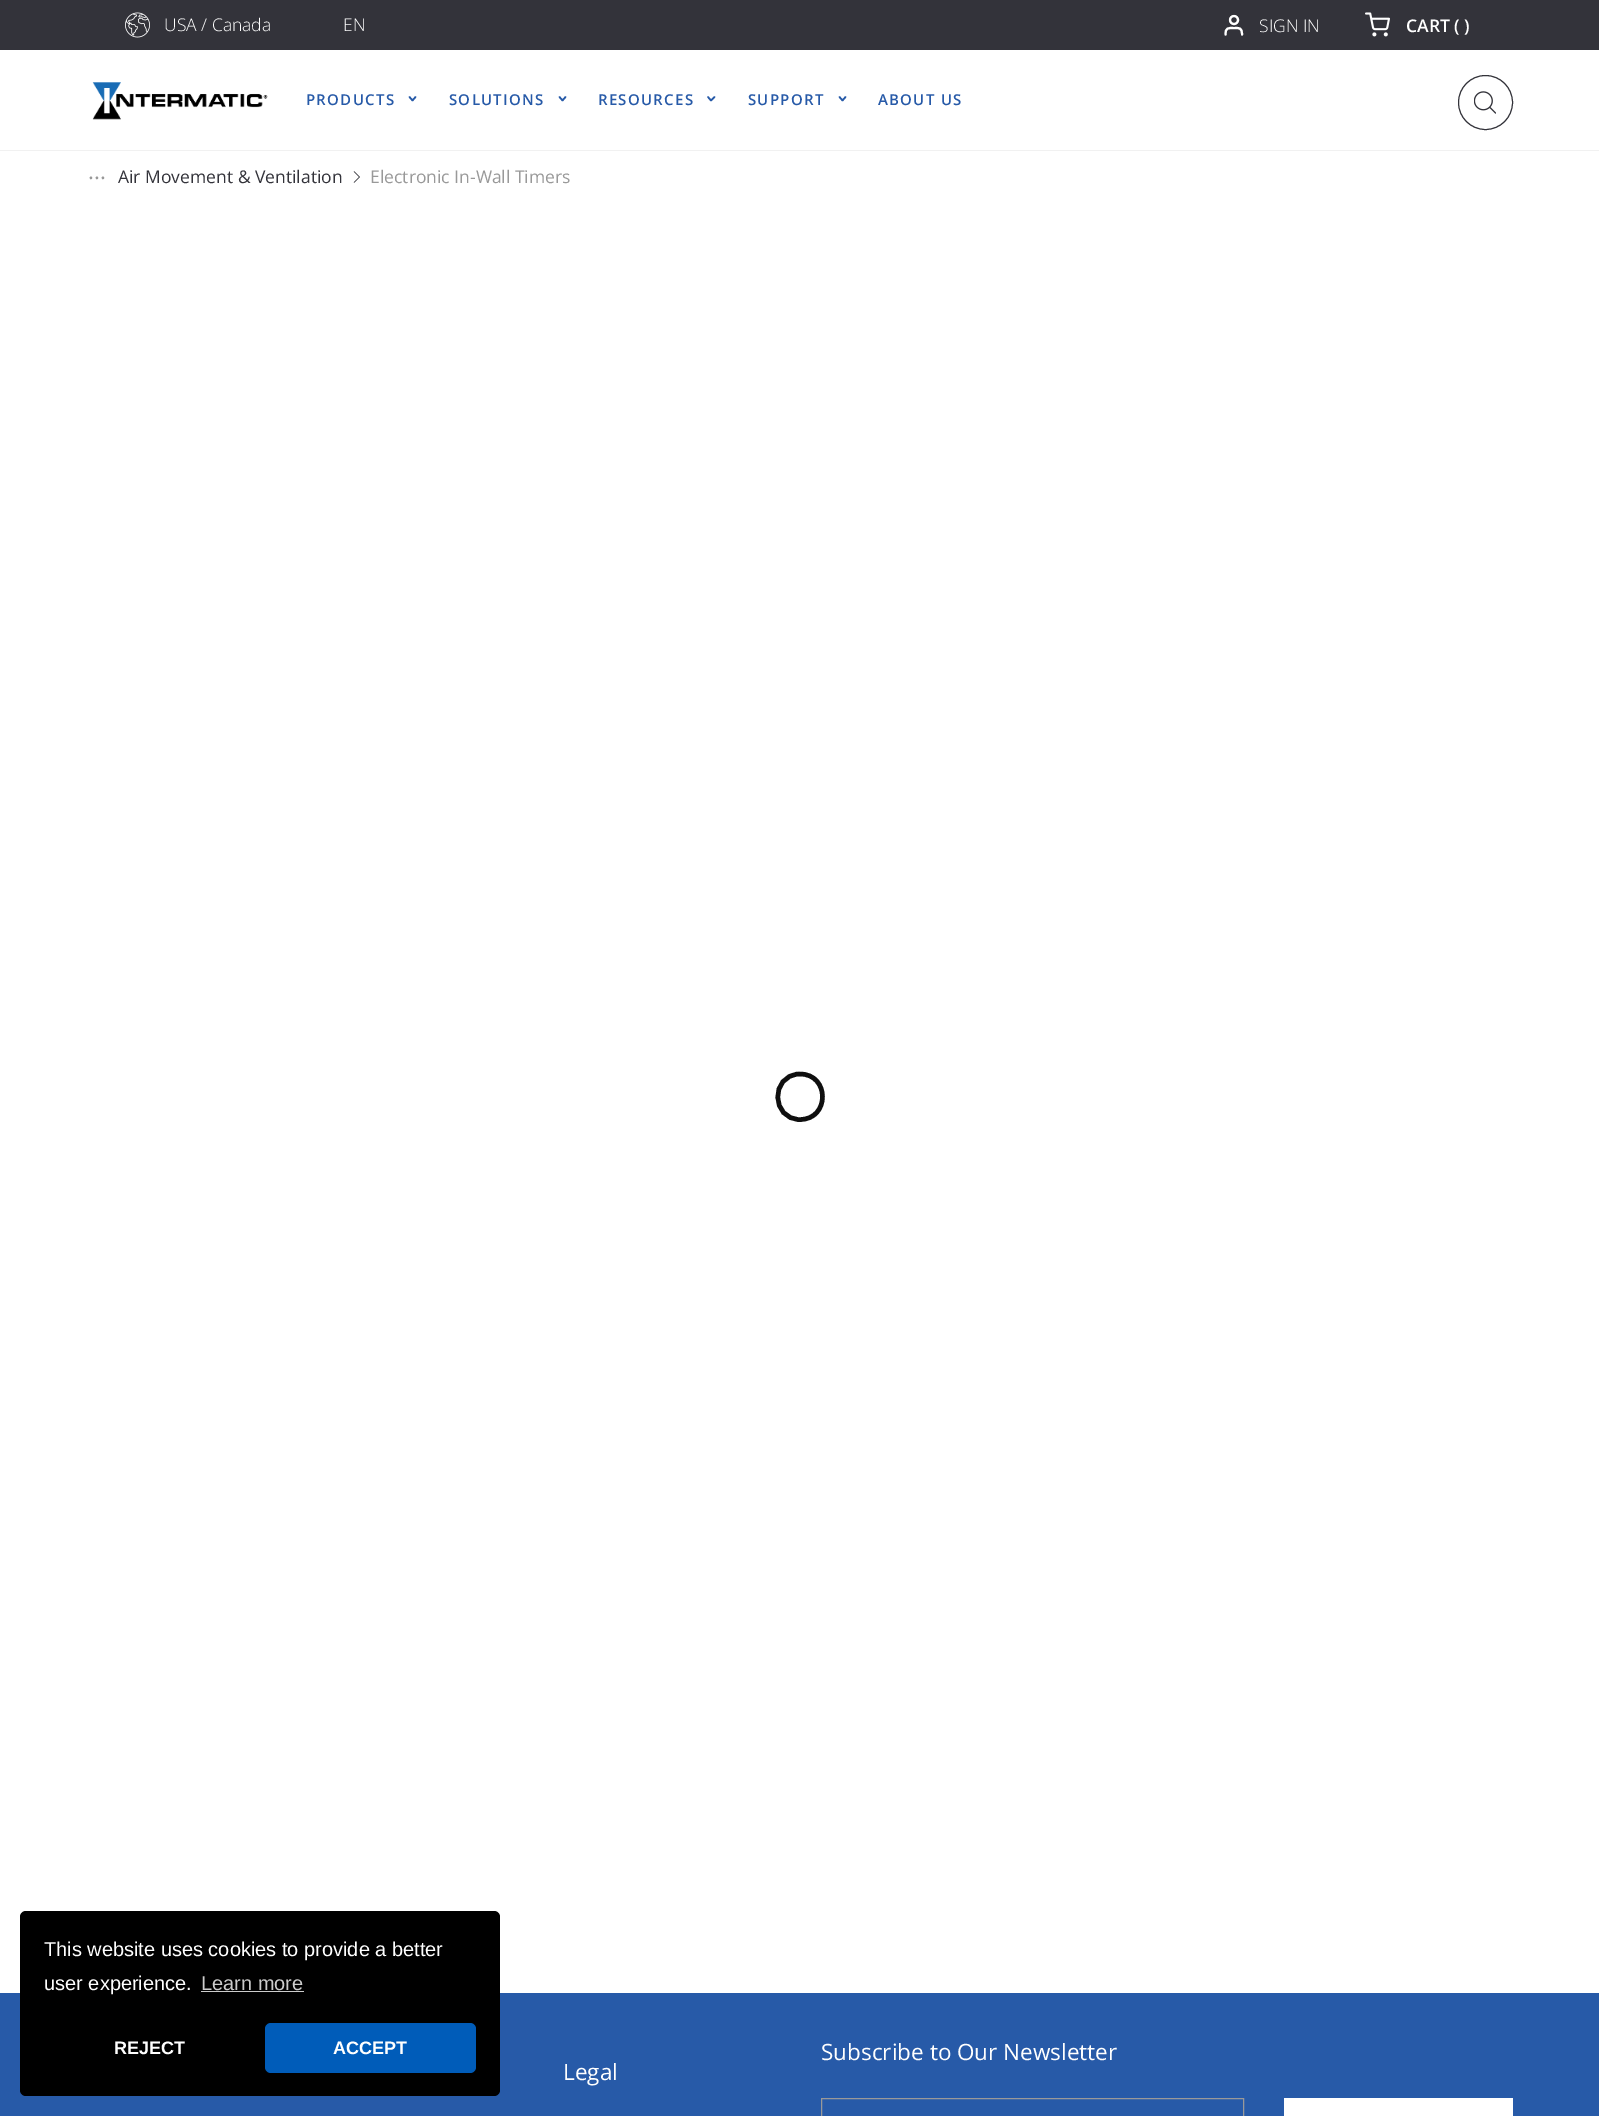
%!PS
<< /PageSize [1599 2116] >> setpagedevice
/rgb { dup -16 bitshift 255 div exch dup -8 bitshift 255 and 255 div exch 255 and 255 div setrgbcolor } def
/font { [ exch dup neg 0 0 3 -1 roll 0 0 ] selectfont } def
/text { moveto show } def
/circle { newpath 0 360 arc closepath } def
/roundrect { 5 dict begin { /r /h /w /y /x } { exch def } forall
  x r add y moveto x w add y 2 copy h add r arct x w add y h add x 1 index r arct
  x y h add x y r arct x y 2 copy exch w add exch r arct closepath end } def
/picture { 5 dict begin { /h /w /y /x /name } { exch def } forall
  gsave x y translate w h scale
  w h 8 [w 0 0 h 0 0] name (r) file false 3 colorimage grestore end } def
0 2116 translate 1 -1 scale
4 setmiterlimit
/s1 { /OpenSans-Light 17.5 font 16#FFFFFF rgb } def
/s2 { /OpenSans-SemiBold 17.5 font 16#FFFFFF rgb } def
/s3 { /OpenSans-Regular 22.5 font 16#999999 rgb } def
/s4 { /OpenSans-Regular 17.5 font 16#33333A rgb } def
/s5 { /OpenSans-Regular 17.5 font 16#999999 rgb } def
/s6 { /OpenSans-Regular 22.5 font 16#FFFFFF rgb } def
/s7 { /LiberationSans-Regular 20 font 16#FFFFFF rgb } def
/s8 { /LiberationSans-Regular 20 font 16#CCCCCC rgb } def
/s9 { /LiberationSans-Bold 18 font 16#FFFFFF rgb } def
16#FFFFFF rgb
0 0 1599 2116 rectfill
16#33333A rgb
0 0 1599 50 rectfill
(pic1.raw) 125 12 25 26 picture
s1
(USA / Canada) 164 31 text
(EN) 343 31 text
2.1 setlinewidth
1 setlinecap
1 setlinejoin
1242 34.5 moveto 1242 27.5 1239.5 28 1234 28 curveto 1228 28 1225.5 27.5 1225.5 34.5 curveto stroke
0 setlinecap
0 setlinejoin
1234 20 4 circle stroke
(SIGN IN) 1259 32 text
(pic2.raw) 1365 12 25 25 picture
s2
(CART \() 1406 32 text
(\)) 1464 32 text
(pic3.raw) 92 82 176 38 picture
/OpenSans-SemiBold 15 font
16#275AA8 rgb
306 105 moveto 1.25 0 (PRODUCTS) ashow
1.6 setlinewidth
1 setlinecap
1 setlinejoin
409.5 97 moveto 412.5 100.5 lineto 415.5 97 lineto stroke
449 105 moveto 1.25 0 (SOLUTIONS) ashow
559.5 97 moveto 562.5 100.5 lineto 565.5 97 lineto stroke
598 105 moveto 1.25 0 (RESOURCES) ashow
708 97 moveto 711 100.5 lineto 714.5 97 lineto stroke
748 105 moveto 1.25 0 (SUPPORT) ashow
839.5 97 moveto 842.5 100.5 lineto 845.5 97 lineto stroke
878 105 moveto 1.25 0 (ABOUT US) ashow
16#33333A rgb
1 setlinewidth
0 setlinecap
0 setlinejoin
1485.5 102.5 27 circle stroke
(pic4.raw) 1474 91 22 23 picture
16#F1F1F1 rgb
0 150 1599 1 rectfill
s3
(...) 88 179 text
s4
(Air Movement & Ventilation) 118 183 text
0.4 setlinewidth
354 182.5 moveto 359.5 177 lineto 354 171.5 lineto stroke
s5
(Electronic In-Wall Timers) 370 183 text
16#0F0F0F rgb
4.5 setlinewidth
1 setlinecap
800 1074 moveto 830 1074 830 1119.5 800 1119.5 curveto 771 1119.5 770 1075.5 799 1074 curveto stroke
16#275AA8 rgb
0 1993 1599 123 rectfill
s6
(Subscribe to Our Newsletter) 821 2060 text
16#999999 rgb
1 setlinewidth
0 setlinecap
821.5 2098.5 422 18 rectstroke
16#FFFFFF rgb
1284 2098 229 18 rectfill
(Legal) 563 2080 text
16#000000 rgb
20 1911 480 185 6 roundrect fill
s7
(This website uses cookies to provide a better) 44 1956 text
(user experience.) 44 1990 text
s8
(Learn more) 201 1990 text
201 1991 103 1 rectfill
s9
(REJECT) 114 2054 text
16#005CB9 rgb
265 2023 211 50 6 roundrect fill
s9
(ACCEPT) 333 2054 text
showpage
